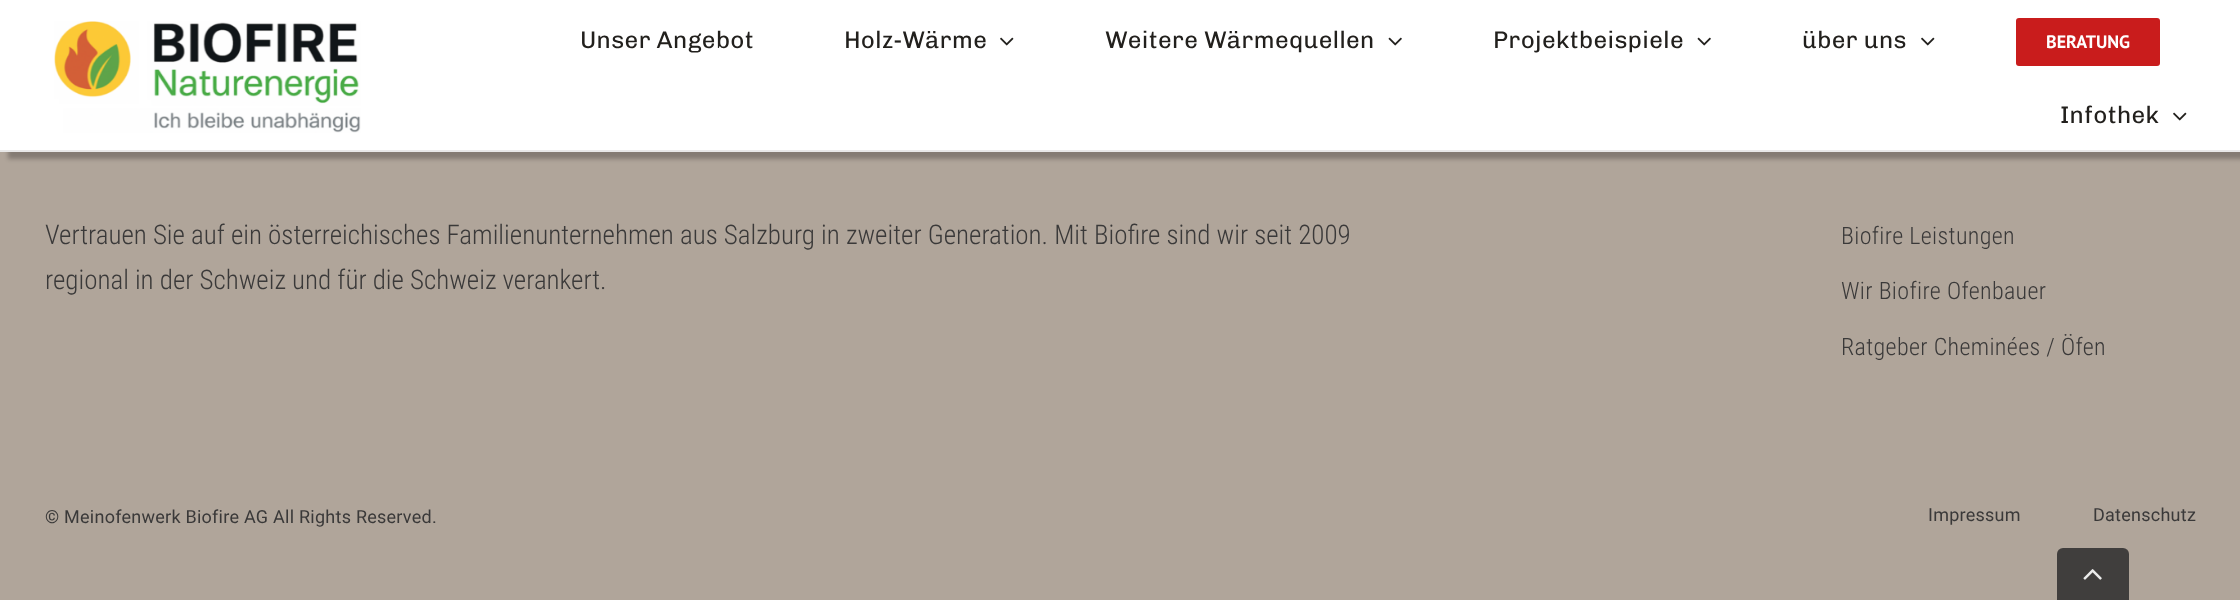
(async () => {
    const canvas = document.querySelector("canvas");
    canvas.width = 2240;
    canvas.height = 600;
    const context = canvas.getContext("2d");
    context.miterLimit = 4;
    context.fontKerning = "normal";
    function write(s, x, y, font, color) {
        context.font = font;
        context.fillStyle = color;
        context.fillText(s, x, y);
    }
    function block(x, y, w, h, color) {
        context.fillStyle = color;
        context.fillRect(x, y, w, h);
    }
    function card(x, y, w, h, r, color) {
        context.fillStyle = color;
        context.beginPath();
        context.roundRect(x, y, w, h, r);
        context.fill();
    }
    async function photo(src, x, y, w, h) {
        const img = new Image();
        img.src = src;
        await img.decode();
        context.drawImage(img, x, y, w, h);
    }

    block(0, 0, 2240, 600, "rgb(176, 165, 154)");
    context.fillStyle = "rgba(0, 0, 0, 0.25)";
    context.filter = "blur(2px)";
    context.beginPath();
    context.rect(8, 8, 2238, 151);
    context.fill();
    context.filter = "none";
    block(0, 0, 2240, 150, "rgb(255, 255, 255)");
    block(0, 150, 2240, 2, "rgb(232, 232, 232)");
    await photo("media/1.png", 54, 21, 307, 112);
    context.letterSpacing = "0.35px";
    write("Unser Angebot", 580, 48, "500 24px Chivo", "rgb(34, 32, 29)");
    write("Holz-Wärme", 844, 48, "500 24px Chivo", "rgb(34, 32, 29)");
    await photo("media/2.png", 1000, 37, 14, 9);
    write("Weitere Wärmequellen", 1105, 48, "500 24px Chivo", "rgb(34, 32, 29)");
    await photo("media/3.png", 1388, 37, 14, 9);
    write("Projektbeispiele", 1493, 48, "500 24px Chivo", "rgb(34, 32, 29)");
    await photo("media/3.png", 1697, 37, 14, 9);
    write("über uns", 1802, 48, "500 24px Chivo", "rgb(34, 32, 29)");
    await photo("media/2.png", 1921, 37, 14, 9);
    card(2016, 18, 144, 48, 3, "rgb(201, 28, 28)");
    context.letterSpacing = "0px";
    write("BERATUNG", 2046, 48, "bold 18px PT Sans", "rgb(255, 255, 255)");
    context.letterSpacing = "0.35px";
    write("Infothek", 2060, 123, "500 24px Chivo", "rgb(34, 32, 29)");
    await photo("media/2.png", 2173, 112, 14, 9);
    context.letterSpacing = "0px";
    write("Vertrauen Sie auf ein österreichisches Familienunternehmen aus Salzburg in zweiter Generation. Mit Biofire sind wir seit 2009", 45, 244, "300 27px Roboto Condensed", "rgb(58, 57, 57)");
    write("regional in der Schweiz und für die Schweiz verankert.", 45, 289, "300 27px Roboto Condensed", "rgb(58, 57, 57)");
    context.letterSpacing = "0.35px";
    write("Biofire Leistungen", 1841, 244, "300 24px Roboto Condensed", "rgb(58, 57, 57)");
    write("Wir Biofire Ofenbauer", 1841, 299, "300 24px Roboto Condensed", "rgb(58, 57, 57)");
    write("Ratgeber Cheminées / Öfen", 1841, 355, "300 24px Roboto Condensed", "rgb(58, 57, 57)");
    context.letterSpacing = "0.25px";
    write("© Meinofenwerk Biofire AG All Rights Reserved.", 45, 523, "18px Roboto", "rgb(58, 57, 57)");
    write("Impressum", 1928, 521, "18px Roboto", "rgb(58, 57, 57)");
    write("Datenschutz", 2093, 521, "18px Roboto", "rgb(58, 57, 57)");
    context.fillStyle = "rgb(64, 62, 61)";
    context.beginPath();
    context.roundRect(2057, 548, 72, 52, [6, 6, 0, 0]);
    context.fill();
    await photo("media/4.png", 2083, 569, 19, 11);
})();
